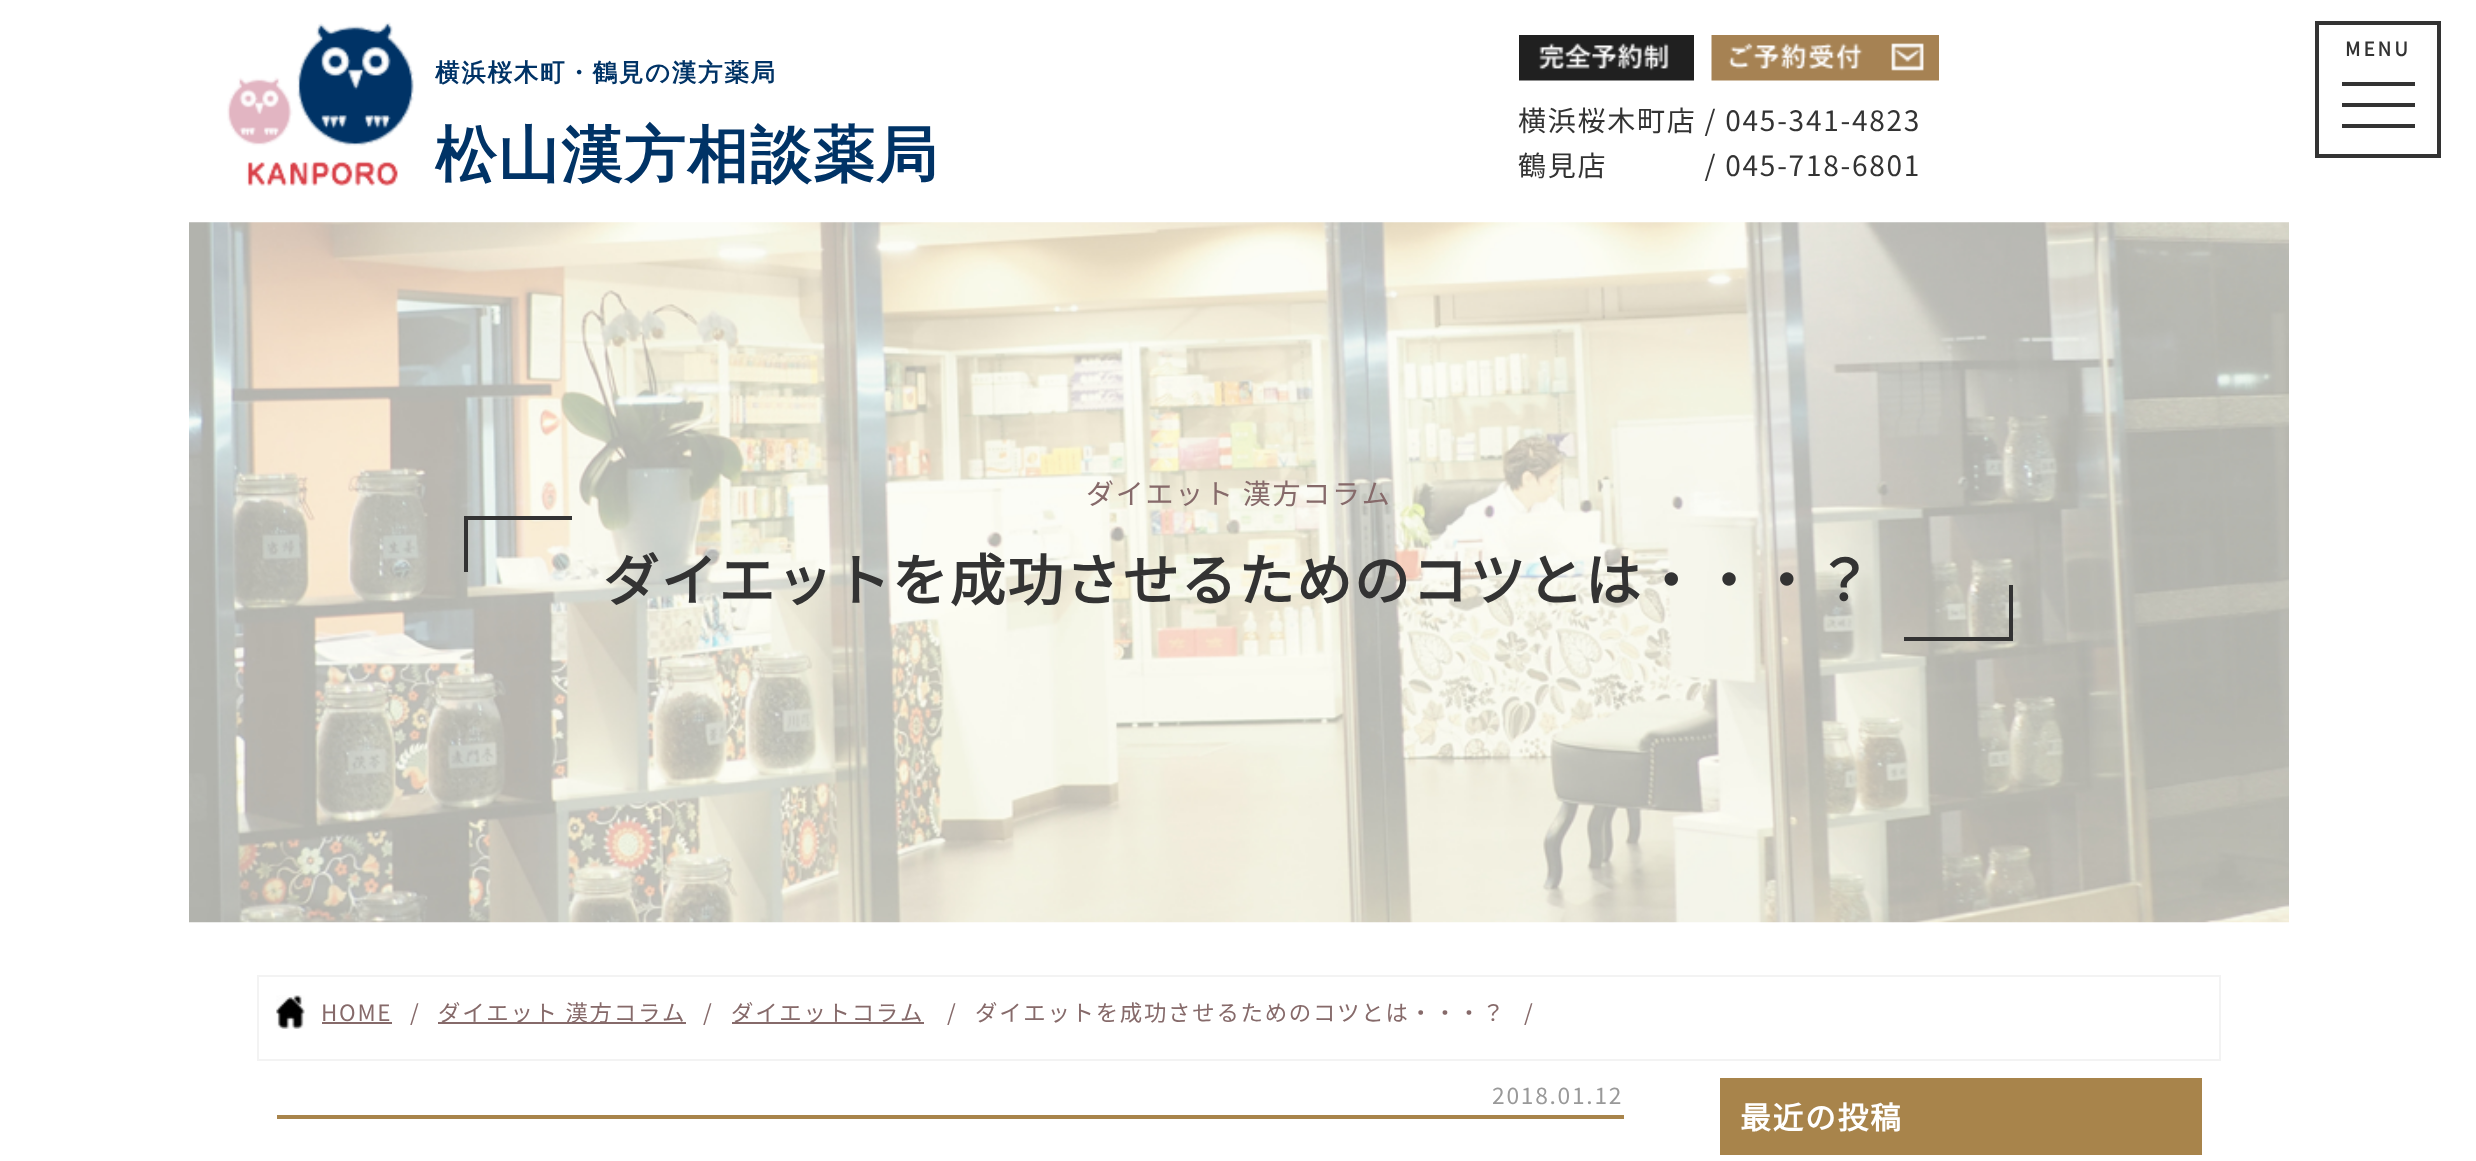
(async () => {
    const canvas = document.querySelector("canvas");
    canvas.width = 2476;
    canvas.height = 1161;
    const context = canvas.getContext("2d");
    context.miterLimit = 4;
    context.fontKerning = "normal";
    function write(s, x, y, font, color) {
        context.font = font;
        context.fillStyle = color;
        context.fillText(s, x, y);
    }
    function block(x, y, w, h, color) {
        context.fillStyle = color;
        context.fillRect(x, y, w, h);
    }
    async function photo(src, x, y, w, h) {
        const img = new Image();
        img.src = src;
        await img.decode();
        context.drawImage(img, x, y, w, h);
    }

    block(0, 0, 2476, 1161, "rgb(255, 255, 255)");
    context.strokeStyle = "rgb(51, 51, 51)";
    context.lineWidth = 4;
    context.strokeRect(2317, 23, 122, 133);
    context.letterSpacing = "3px";
    write("MENU", 2345, 56, "bold 19px Noto Sans JP", "rgb(51, 51, 51)");
    block(2342, 82, 73, 4, "rgb(51, 51, 51)");
    block(2342, 103, 73, 4, "rgb(51, 51, 51)");
    block(2342, 124, 73, 4, "rgb(51, 51, 51)");
    await photo("media/1.png", 227, 22, 187, 164);
    context.letterSpacing = "1.75px";
    write("横浜桜木町・鶴見の漢方薬局", 435, 81, "bold 24.5px WenQuanYi Zen Hei", "rgb(0, 51, 102)");
    write("松山漢方相談薬局", 435, 176, "bold 61.25px WenQuanYi Zen Hei", "rgb(0, 51, 102)");
    await photo("media/2.png", 1519, 35, 175, 46);
    await photo("media/3.png", 1711, 35, 228, 46);
    write("横浜桜木町店 / 045-341-4823", 1518, 131, "100 28px Noto Sans JP", "rgb(51, 51, 51)");
    write("鶴見店　　　 / 045-718-6801", 1518, 176, "100 28px Noto Sans JP", "rgb(51, 51, 51)");
    await photo("media/4.png", 189, 222, 2100, 701);
    write("ダイエット 漢方コラム", 1086, 504, "100 28px Noto Sans JP", "rgb(134, 106, 106)");
    block(464, 516, 108, 4, "rgb(51, 51, 51)");
    block(464, 516, 4, 56, "rgb(51, 51, 51)");
    write("ダイエットを成功させるためのコツとは・・・？", 603, 601, "bold 56px Noto Sans JP", "rgb(51, 51, 51)");
    block(2009, 585, 4, 56, "rgb(51, 51, 51)");
    block(1904, 637, 109, 4, "rgb(51, 51, 51)");
    context.strokeStyle = "rgb(243, 243, 243)";
    context.lineWidth = 2;
    context.strokeRect(258, 976, 1962, 84);
    await photo("media/5.png", 276, 995, 29, 34);
    write("HOME", 321, 1021, "100 22.4px Noto Sans JP", "rgb(134, 106, 106)");
    block(322, 1022, 70, 2, "rgb(134, 106, 106)");
    write("/", 410, 1021, "100 22.4px Noto Sans JP", "rgb(134, 106, 106)");
    block(438, 1022, 248, 2, "rgb(134, 106, 106)");
    write("ダイエット 漢方コラム", 438, 1021, "100 22.4px Noto Sans JP", "rgb(134, 106, 106)");
    write("/", 703, 1021, "100 22.4px Noto Sans JP", "rgb(134, 106, 106)");
    block(732, 1022, 192, 2, "rgb(134, 106, 106)");
    write("ダイエットコラム", 731, 1021, "100 22.4px Noto Sans JP", "rgb(134, 106, 106)");
    write("/", 947, 1021, "100 22.4px Noto Sans JP", "rgb(134, 106, 106)");
    write("ダイエットを成功させるためのコツとは・・・？", 975, 1021, "100 22.4px Noto Sans JP", "rgb(134, 106, 106)");
    write("/", 1524, 1021, "100 22.4px Noto Sans JP", "rgb(134, 106, 106)");
    block(277, 1115, 1347, 4, "rgb(168, 132, 75)");
    write("2018.01.12", 1492, 1104, "100 22.75px Noto Sans JP", "rgb(153, 153, 153)");
    block(1720, 1078, 482, 77, "rgb(168, 132, 75)");
    write("最近の投稿", 1740, 1129, "bold 30.75px Noto Sans JP", "rgb(255, 255, 255)");
})();
